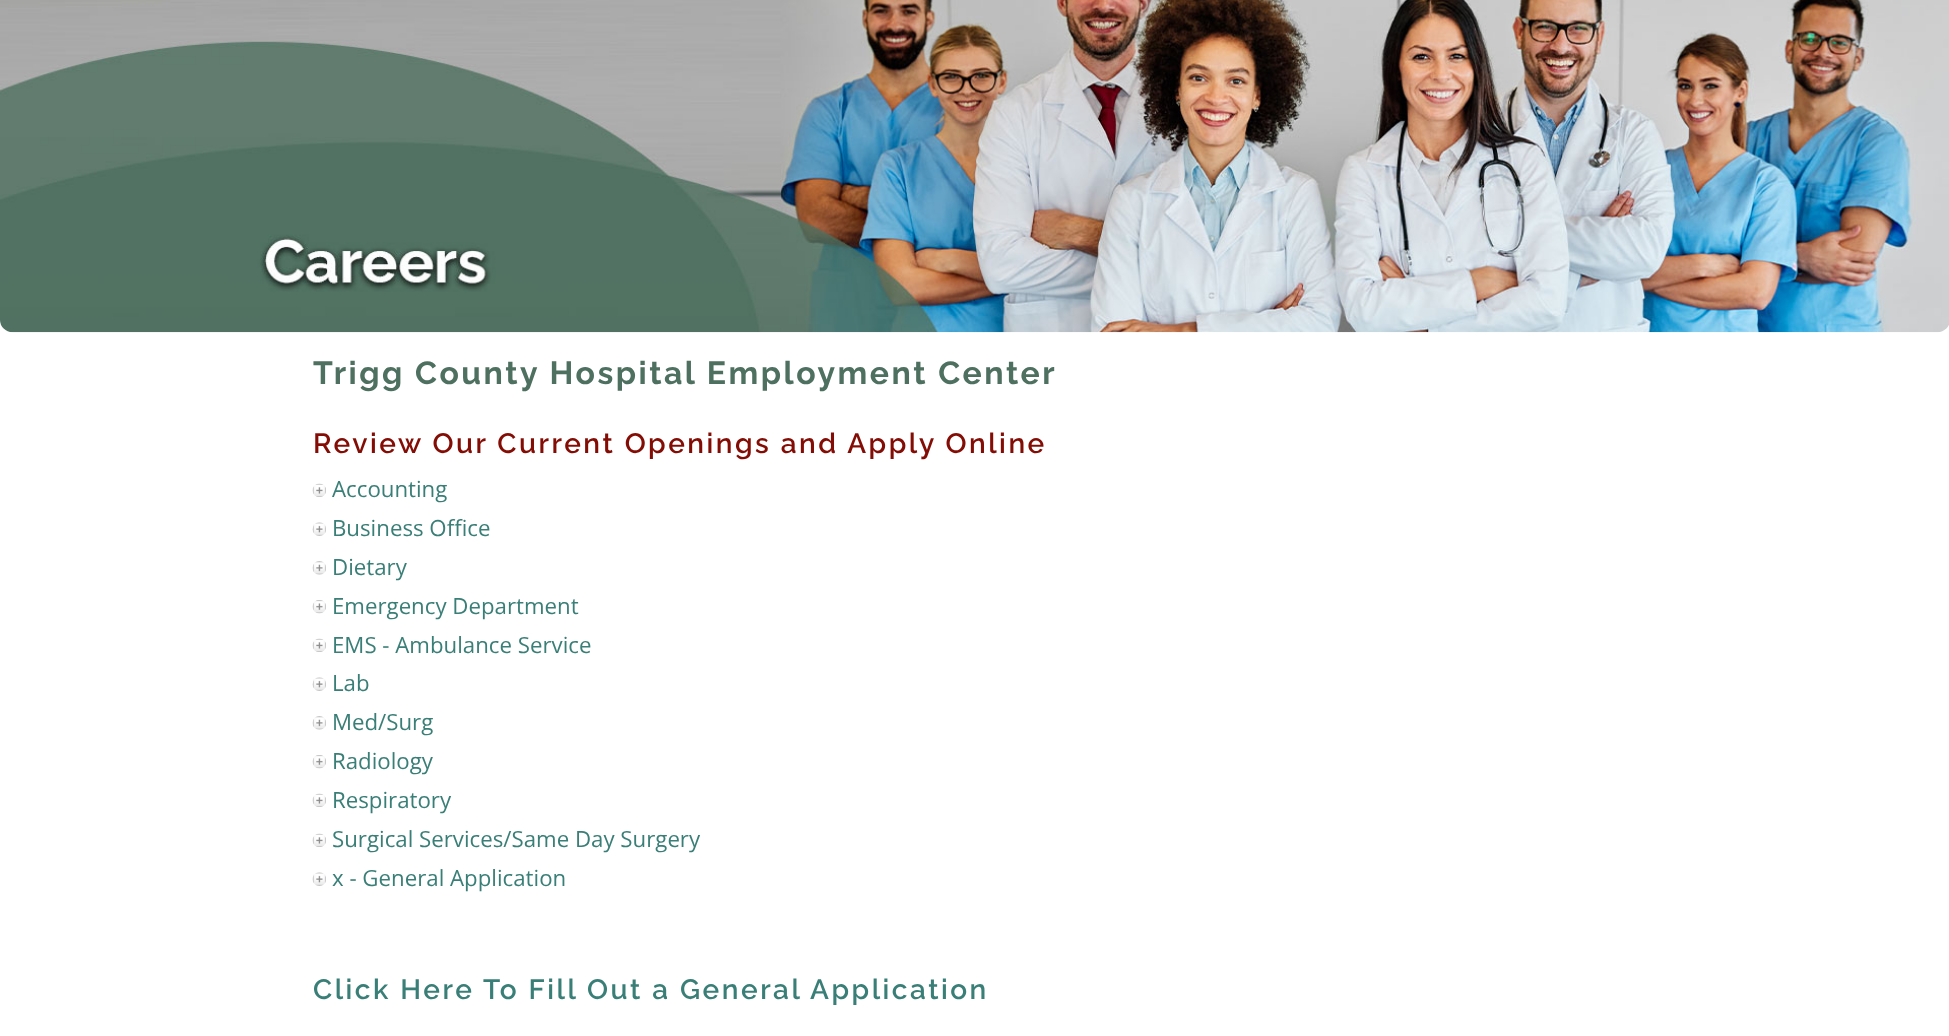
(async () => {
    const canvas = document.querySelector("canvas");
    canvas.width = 1949;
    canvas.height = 1036;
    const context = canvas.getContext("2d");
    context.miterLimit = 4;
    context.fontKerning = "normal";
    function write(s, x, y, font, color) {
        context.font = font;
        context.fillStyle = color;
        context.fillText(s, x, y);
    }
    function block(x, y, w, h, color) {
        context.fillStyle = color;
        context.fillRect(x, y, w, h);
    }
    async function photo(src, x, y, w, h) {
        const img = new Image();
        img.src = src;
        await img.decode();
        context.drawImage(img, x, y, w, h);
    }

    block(0, 0, 1949, 1036, "rgb(255, 255, 255)");
    await photo("media/1.png", 0, 0, 1949, 333);
    context.letterSpacing = "2.5px";
    write("Trigg County Hospital Employment Center", 313, 384, "bold 32px Raleway", "rgb(78, 112, 96)");
    write("Review Our Current Openings and Apply Online", 313, 453, "600 28px Raleway", "rgb(131, 12, 4)");
    await photo("media/2.png", 312, 483, 14, 14);
    context.letterSpacing = "0px";
    write("Accounting", 332, 497, "22.25px Open Sans", "rgb(58, 127, 119)");
    await photo("media/3.png", 312, 522, 14, 14);
    write("Business Office", 332, 536, "22.25px Open Sans", "rgb(58, 127, 119)");
    await photo("media/4.png", 312, 561, 14, 14);
    write("Dietary", 332, 575, "22.25px Open Sans", "rgb(58, 127, 119)");
    await photo("media/5.png", 312, 600, 14, 14);
    write("Emergency Department", 332, 614, "22.25px Open Sans", "rgb(58, 127, 119)");
    await photo("media/2.png", 312, 638, 14, 14);
    write("EMS - Ambulance Service", 332, 653, "22.25px Open Sans", "rgb(58, 127, 119)");
    await photo("media/3.png", 312, 677, 14, 14);
    write("Lab", 332, 691, "22.25px Open Sans", "rgb(58, 127, 119)");
    await photo("media/4.png", 312, 716, 14, 14);
    write("Med/Surg", 332, 730, "22.25px Open Sans", "rgb(58, 127, 119)");
    await photo("media/5.png", 312, 755, 14, 14);
    write("Radiology", 332, 769, "22.25px Open Sans", "rgb(58, 127, 119)");
    await photo("media/2.png", 312, 793, 14, 14);
    write("Respiratory", 332, 808, "22.25px Open Sans", "rgb(58, 127, 119)");
    await photo("media/2.png", 312, 833, 14, 14);
    write("Surgical Services/Same Day Surgery", 332, 847, "22.25px Open Sans", "rgb(58, 127, 119)");
    await photo("media/6.png", 312, 872, 14, 14);
    write("x - General Application", 332, 886, "22.25px Open Sans", "rgb(58, 127, 119)");
    context.letterSpacing = "2.5px";
    write("Click Here To Fill Out a General Application", 313, 999, "600 28px Raleway", "rgb(58, 127, 119)");
})();
